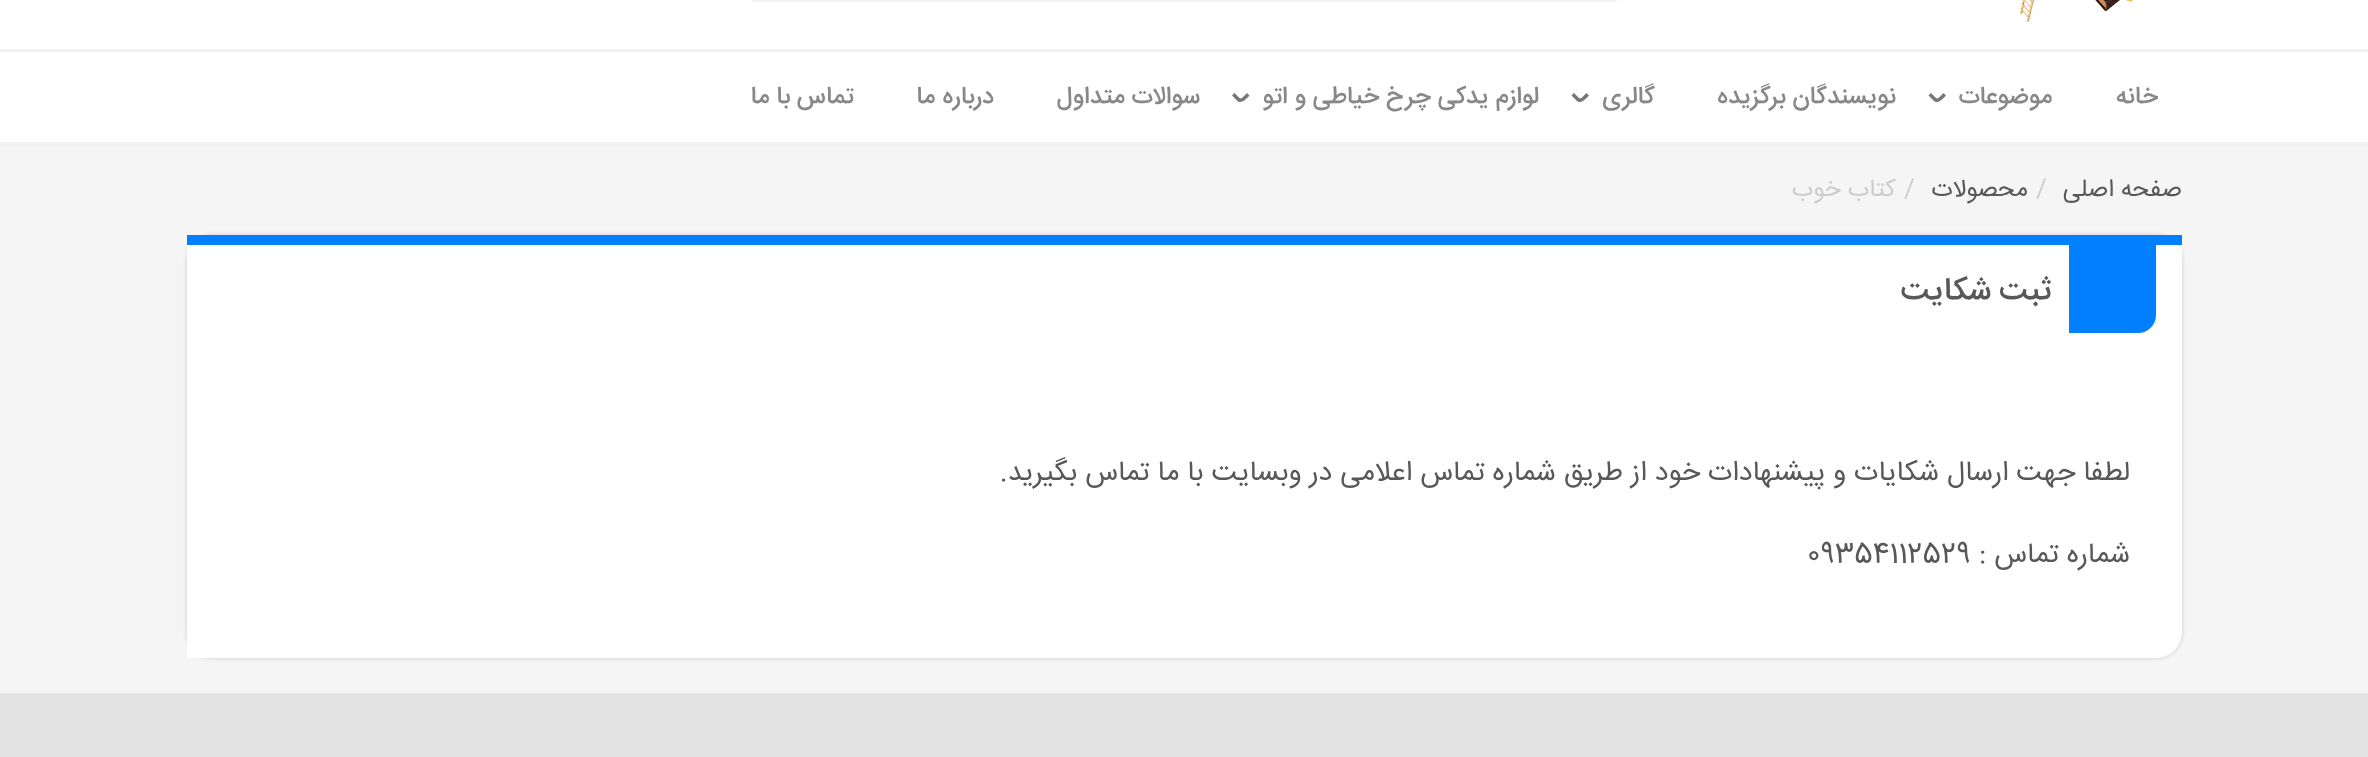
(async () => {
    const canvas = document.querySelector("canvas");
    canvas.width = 2368;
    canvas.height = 757;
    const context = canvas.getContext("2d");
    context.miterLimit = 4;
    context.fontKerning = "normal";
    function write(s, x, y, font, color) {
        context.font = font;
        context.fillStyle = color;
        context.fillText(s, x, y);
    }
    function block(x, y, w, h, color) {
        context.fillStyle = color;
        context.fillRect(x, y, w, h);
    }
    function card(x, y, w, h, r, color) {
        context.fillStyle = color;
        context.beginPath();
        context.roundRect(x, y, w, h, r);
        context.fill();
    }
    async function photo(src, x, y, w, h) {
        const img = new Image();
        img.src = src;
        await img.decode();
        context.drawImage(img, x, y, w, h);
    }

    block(0, 0, 2368, 757, "rgb(245, 245, 245)");
    block(0, 0, 2368, 142, "rgb(255, 255, 255)");
    block(0, 142, 2368, 5, "rgb(241, 241, 241)");
    card(747, -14, 875, 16, 14, "rgb(245, 245, 245)");
    await photo("media/1.png", 2020, 0, 113, 23);
    context.fillStyle = "rgb(241, 241, 241)";
    context.beginPath();
    context.moveTo(0, 49);
    context.lineTo(0, 52);
    context.lineTo(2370, 52);
    context.lineTo(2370, 137);
    context.lineTo(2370, 49);
    context.closePath();
    context.fill();
    context.direction = "rtl";
    write("خانه", 2158, 103, "500 24.5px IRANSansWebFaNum", "rgb(136, 136, 136)");
    write("موضوعات", 2052, 103, "500 24.5px IRANSansWebFaNum", "rgb(136, 136, 136)");
    context.fillStyle = "rgb(119, 119, 119)";
    context.beginPath();
    context.moveTo(1933.5, 100.5);
    context.lineTo(1928.5, 95.5);
    context.lineTo(1937, 86.5);
    context.lineTo(1946, 95.5);
    context.bezierCurveTo(1943, 98.5, 1938, 105, 1933.5, 100.5);
    context.closePath();
    context.moveTo(1936, 98);
    context.lineTo(1931, 93);
    context.lineTo(1937, 86.5);
    context.lineTo(1943.5, 93);
    context.lineTo(1938.5, 98);
    context.bezierCurveTo(1938, 98.5, 1936.5, 98.5, 1936, 98);
    context.closePath();
    context.fill("evenodd");
    write("نویسندگان برگزیده", 1896, 103, "500 24.5px IRANSansWebFaNum", "rgb(136, 136, 136)");
    write("گالری", 1655, 103, "500 24.5px IRANSansWebFaNum", "rgb(136, 136, 136)");
    context.fillStyle = "rgb(119, 119, 119)";
    context.beginPath();
    context.moveTo(1576.5, 100.5);
    context.lineTo(1571.5, 95.5);
    context.lineTo(1580, 86.5);
    context.lineTo(1589, 95.5);
    context.bezierCurveTo(1586, 98.5, 1581, 105, 1576.5, 100.5);
    context.closePath();
    context.moveTo(1579, 98);
    context.lineTo(1574, 93);
    context.lineTo(1580, 86.5);
    context.lineTo(1586.5, 93);
    context.lineTo(1581.5, 98);
    context.bezierCurveTo(1580.5, 98.5, 1579.5, 98.5, 1579, 98);
    context.closePath();
    context.fill("evenodd");
    write("لوازم یدکی چرخ خیاطی و اتو", 1539, 103, "500 24.5px IRANSansWebFaNum", "rgb(136, 136, 136)");
    context.fillStyle = "rgb(119, 119, 119)";
    context.beginPath();
    context.moveTo(1237, 100.5);
    context.lineTo(1232, 95.5);
    context.lineTo(1240.5, 86.5);
    context.lineTo(1249.5, 95.5);
    context.bezierCurveTo(1246.5, 98.5, 1241.5, 105, 1237, 100.5);
    context.closePath();
    context.moveTo(1239.5, 98);
    context.lineTo(1234.5, 93);
    context.lineTo(1240.5, 86.5);
    context.lineTo(1247, 93);
    context.lineTo(1242, 98);
    context.bezierCurveTo(1241.5, 98.5, 1240, 98.5, 1239.5, 98);
    context.closePath();
    context.fill("evenodd");
    write("سوالات متداول", 1200, 103, "500 24.5px IRANSansWebFaNum", "rgb(136, 136, 136)");
    write("درباره", 994, 103, "500 24.5px IRANSansWebFaNum", "rgb(136, 136, 136)");
    write("ما", 935, 103, "500 24.5px IRANSansWebFaNum", "rgb(136, 136, 136)");
    write("تماس با ما", 854, 103, "500 24.5px IRANSansWebFaNum", "rgb(136, 136, 136)");
    write("صفحه اصلی", 2182, 196, "24.5px IRANSansWebFaNum", "rgb(88, 88, 88)");
    context.direction = "ltr";
    write("/", 2036, 196, "24.5px IRANSansWebFaNum", "rgb(204, 204, 204)");
    context.direction = "rtl";
    write("محصولات", 2028, 196, "24.5px IRANSansWebFaNum", "rgb(88, 88, 88)");
    context.direction = "ltr";
    write("/", 1904, 196, "24.5px IRANSansWebFaNum", "rgb(204, 204, 204)");
    context.direction = "rtl";
    write("کتاب خوب", 1896, 196, "24.5px IRANSansWebFaNum", "rgb(204, 204, 204)");
    context.fillStyle = "rgb(201, 199, 211)";
    context.filter = "blur(2px)";
    context.beginPath();
    context.roundRect(187, 235, 1995, 423, 26);
    context.fill();
    context.filter = "none";
    context.fillStyle = "rgb(255, 255, 255)";
    context.beginPath();
    context.roundRect(187, 235, 1995, 423, [0, 0, 26, 0]);
    context.fill();
    block(187, 235, 1995, 10, "rgb(0, 128, 255)");
    context.beginPath();
    context.roundRect(2069, 245, 87, 88, [0, 0, 18, 0]);
    context.fill();
    write("ثبت شکایت", 2051, 299, "500 31.5px IRANSansWebFaNum", "rgb(88, 88, 88)");
    write("لطفا جهت ارسال شکایات و پیشنهادات خود از طریق شماره تماس اعلامی در وبسایت با ما تماس بگیرید.", 2130, 480, "28px IRANSansWebFaNum", "rgb(88, 88, 88)");
    write("شماره تماس :", 2130, 562, "28px IRANSansWebFaNum", "rgb(88, 88, 88)");
    context.direction = "ltr";
    write("09354112529", 1807, 562, "28px IRANSansWebFaNum", "rgb(88, 88, 88)");
    block(0, 693, 2368, 64, "rgb(227, 227, 227)");
})();
